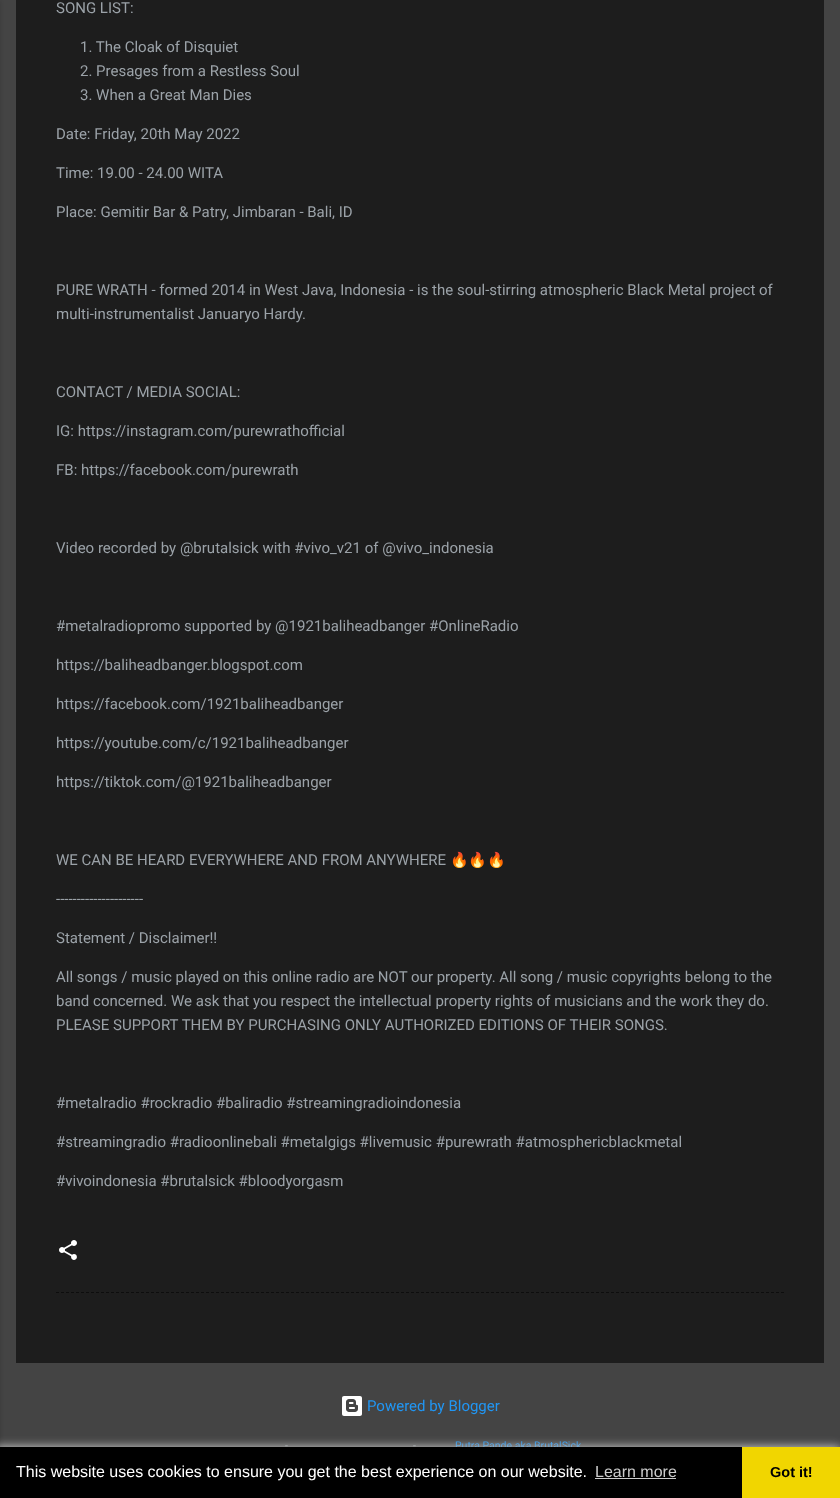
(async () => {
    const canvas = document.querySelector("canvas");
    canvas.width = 840;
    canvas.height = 1498;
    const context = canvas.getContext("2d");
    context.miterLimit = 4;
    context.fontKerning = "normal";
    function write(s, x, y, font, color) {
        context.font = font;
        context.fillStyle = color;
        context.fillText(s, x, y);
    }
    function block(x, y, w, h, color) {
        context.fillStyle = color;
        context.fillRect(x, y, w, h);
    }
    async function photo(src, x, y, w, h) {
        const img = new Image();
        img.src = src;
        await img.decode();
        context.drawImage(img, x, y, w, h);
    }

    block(0, 0, 840, 1498, "rgb(68, 68, 68)");
    context.fillStyle = "rgba(0, 0, 0, 0.1)";
    context.filter = "blur(1.5px)";
    context.beginPath();
    context.rect(-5, 1, 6, 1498);
    context.fill();
    context.filter = "none";
    block(16, 0, 808, 1363, "rgb(29, 29, 29)");
    write("SONG LIST:", 56, 13, "15px Roboto", "rgb(155, 162, 168)");
    write("1. The Cloak of Disquiet", 80, 52, "15px Roboto", "rgb(155, 162, 168)");
    write("2. Presages from a Restless Soul", 80, 76, "15px Roboto", "rgb(155, 162, 168)");
    write("3. When a Great Man Dies", 80, 100, "15px Roboto", "rgb(155, 162, 168)");
    write("Date: Friday, 20th May 2022", 56, 139, "15px Roboto", "rgb(155, 162, 168)");
    write("Time: 19.00 - 24.00 WITA", 56, 178, "15px Roboto", "rgb(155, 162, 168)");
    write("Place: Gemitir Bar & Patry, Jimbaran - Bali, ID", 56, 217, "15px Roboto", "rgb(155, 162, 168)");
    write("PURE WRATH - formed 2014 in West Java, Indonesia - is the soul-stirring atmospheric Black Metal project of", 56, 295, "15px Roboto", "rgb(155, 162, 168)");
    write("multi-instrumentalist Januaryo Hardy.", 56, 319, "15px Roboto", "rgb(155, 162, 168)");
    write("CONTACT / MEDIA SOCIAL:", 56, 397, "15px Roboto", "rgb(155, 162, 168)");
    write("IG: https://instagram.com/purewrathofficial", 56, 436, "15px Roboto", "rgb(155, 162, 168)");
    write("FB: https://facebook.com/purewrath", 56, 475, "15px Roboto", "rgb(155, 162, 168)");
    write("Video recorded by @brutalsick with #vivo_v21 of @vivo_indonesia", 56, 553, "15px Roboto", "rgb(155, 162, 168)");
    write("#metalradiopromo supported by @1921baliheadbanger #OnlineRadio", 56, 631, "15px Roboto", "rgb(155, 162, 168)");
    write("https://baliheadbanger.blogspot.com", 56, 670, "15px Roboto", "rgb(155, 162, 168)");
    write("https://facebook.com/1921baliheadbanger", 56, 709, "15px Roboto", "rgb(155, 162, 168)");
    write("https://youtube.com/c/1921baliheadbanger", 56, 748, "15px Roboto", "rgb(155, 162, 168)");
    write("https://tiktok.com/@1921baliheadbanger", 56, 787, "15px Roboto", "rgb(155, 162, 168)");
    write("WE CAN BE HEARD EVERYWHERE AND FROM ANYWHERE", 56, 865, "15px Roboto", "rgb(155, 162, 168)");
    write("🔥🔥🔥", 450, 865, "15px Noto Color Emoji", "rgb(155, 162, 168)");
    write("---------------------", 56, 904, "15px Roboto", "rgb(155, 162, 168)");
    write("Statement / Disclaimer!!", 56, 943, "15px Roboto", "rgb(155, 162, 168)");
    write("All songs / music played on this online radio are NOT our property. All song / music copyrights belong to the", 56, 982, "15px Roboto", "rgb(155, 162, 168)");
    write("band concerned. We ask that you respect the intellectual property rights of musicians and the work they do.", 56, 1006, "15px Roboto", "rgb(155, 162, 168)");
    write("PLEASE SUPPORT THEM BY PURCHASING ONLY AUTHORIZED EDITIONS OF THEIR SONGS.", 56, 1030, "15px Roboto", "rgb(155, 162, 168)");
    write("#metalradio #rockradio #baliradio #streamingradioindonesia", 56, 1108, "15px Roboto", "rgb(155, 162, 168)");
    write("#streamingradio #radioonlinebali #metalgigs #livemusic #purewrath #atmosphericblackmetal", 56, 1147, "15px Roboto", "rgb(155, 162, 168)");
    write("#vivoindonesia #brutalsick #bloodyorgasm", 56, 1186, "15px Roboto", "rgb(155, 162, 168)");
    await photo("media/1.png", 59, 1240, 18, 20);
    context.beginPath();
    context.moveTo(56, 1292.5);
    context.lineTo(784, 1292.5);
    context.strokeStyle = "rgb(13, 13, 13)";
    context.setLineDash([3, 2]);
    context.stroke();
    await photo("media/2.png", 342, 1396, 20, 20);
    write("Powered by Blogger", 367, 1411, "15px Roboto", "rgb(33, 150, 243)");
    write("-", 285, 1449, "10.5px Roboto", "rgb(155, 162, 168)");
    write("-", 413, 1449, "10.5px Roboto", "rgb(155, 162, 168)");
    write("Putra Pande aka BrutalSick", 455, 1449, "10.5px Roboto", "rgb(33, 150, 243)");
    context.fillStyle = "rgb(192, 192, 192)";
    context.filter = "blur(5px)";
    context.beginPath();
    context.rect(-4, 1446, 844, 50);
    context.fill();
    context.filter = "none";
    block(0, 1447, 742, 51, "rgb(0, 0, 0)");
    write("This website uses cookies to ensure you get the best experience on our website.", 16, 1477, "16px Liberation Sans", "rgb(255, 255, 255)");
    write("Learn more", 595, 1477, "16px Liberation Sans", "rgb(204, 204, 204)");
    block(595, 1478, 81, 1, "rgb(204, 204, 204)");
    block(742, 1447, 98, 51, "rgb(241, 214, 0)");
    write("Got it!", 770, 1477, "bold 14.5px Liberation Sans", "rgb(0, 0, 0)");
})();
